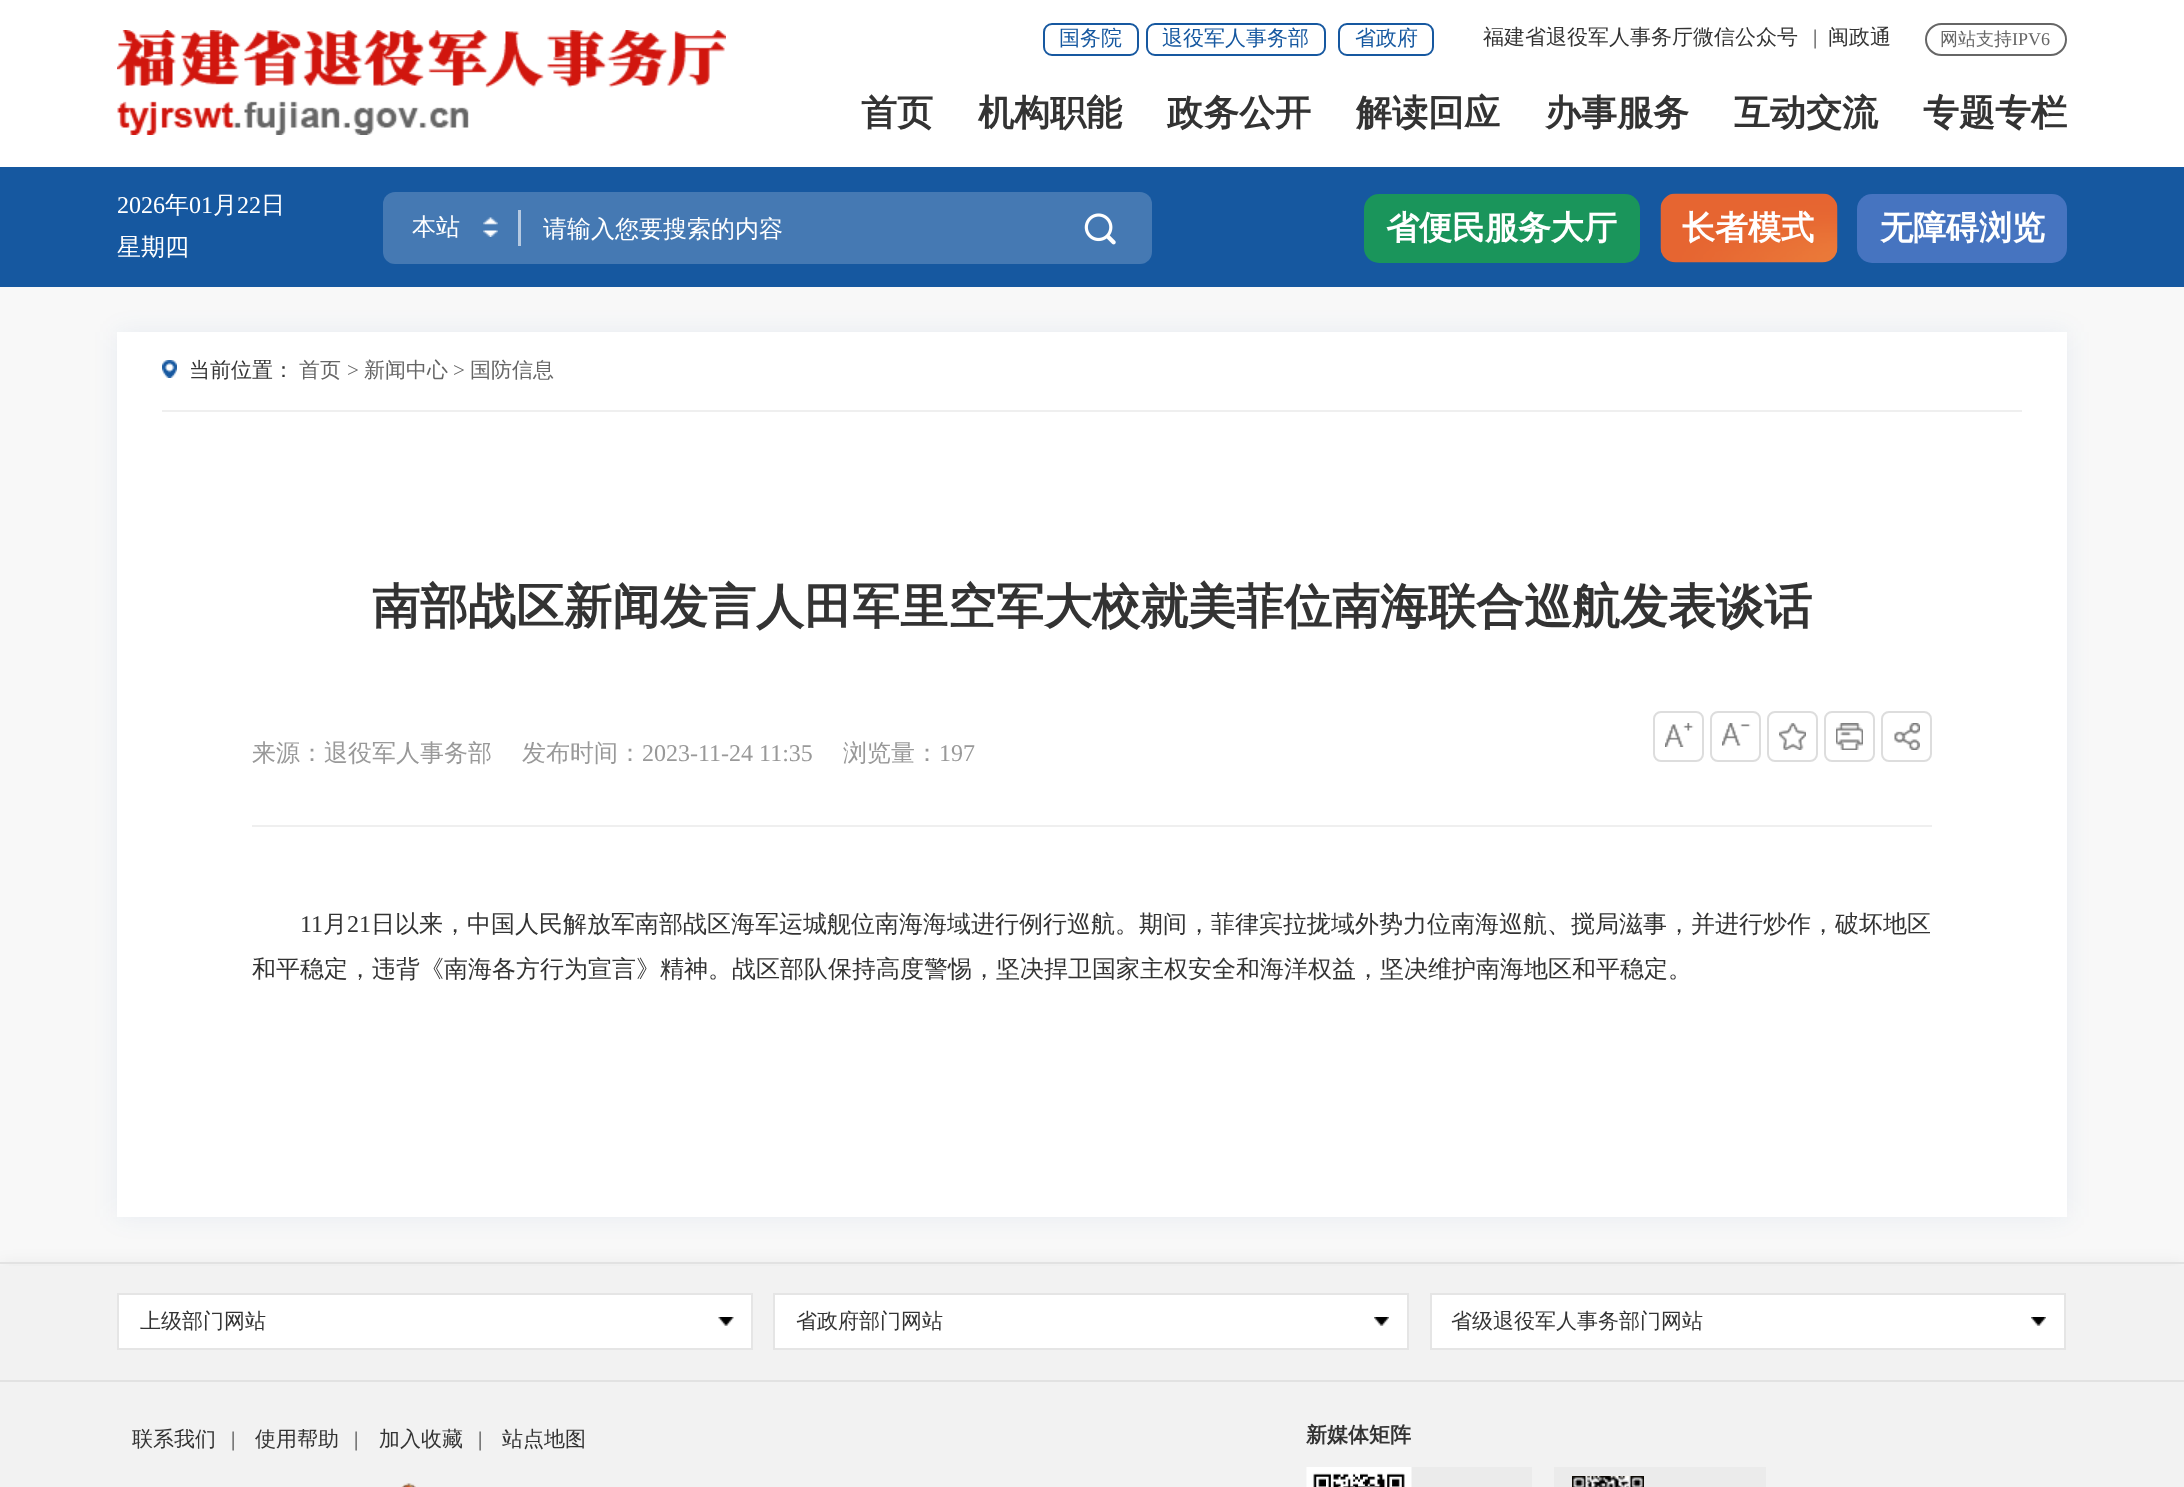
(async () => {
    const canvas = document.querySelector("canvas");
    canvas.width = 2184;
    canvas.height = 1487;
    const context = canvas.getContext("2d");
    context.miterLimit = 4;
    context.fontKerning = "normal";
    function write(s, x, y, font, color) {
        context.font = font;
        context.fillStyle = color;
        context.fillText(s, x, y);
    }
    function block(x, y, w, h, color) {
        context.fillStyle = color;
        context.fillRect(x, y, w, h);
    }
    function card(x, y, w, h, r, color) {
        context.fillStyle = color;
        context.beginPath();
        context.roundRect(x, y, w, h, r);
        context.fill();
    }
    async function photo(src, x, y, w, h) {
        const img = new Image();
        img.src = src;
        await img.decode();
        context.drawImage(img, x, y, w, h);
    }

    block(0, 0, 2184, 1487, "rgb(248, 248, 248)");
    block(0, 0, 2184, 167, "rgb(255, 255, 255)");
    await photo("media/1.png", 117, 30, 609, 105);
    context.beginPath();
    context.roundRect(1044, 24, 94, 31, 8);
    context.strokeStyle = "rgb(22, 88, 160)";
    context.lineWidth = 2;
    context.stroke();
    write("国务院", 1059, 45, "500 21px WenQuanYi Zen Hei", "rgb(22, 88, 160)");
    context.beginPath();
    context.roundRect(1147, 24, 178, 31, 8);
    context.stroke();
    write("退役军人事务部", 1162, 45, "500 21px WenQuanYi Zen Hei", "rgb(22, 88, 160)");
    context.beginPath();
    context.roundRect(1339, 24, 94, 31, 8);
    context.stroke();
    write("省政府", 1355, 45, "500 21px WenQuanYi Zen Hei", "rgb(22, 88, 160)");
    write("福建省退役军人事务厅微信公众号", 1483, 44, "500 21px WenQuanYi Zen Hei", "rgb(51, 51, 51)");
    write("|", 1813, 44, "21px Liberation Serif", "rgb(51, 51, 51)");
    write("闽政通", 1828, 44, "500 21px WenQuanYi Zen Hei", "rgb(51, 51, 51)");
    context.beginPath();
    context.roundRect(1926, 24, 140, 31, 15.5);
    context.strokeStyle = "rgb(102, 102, 102)";
    context.stroke();
    write("网站支持", 1940, 45, "500 18px WenQuanYi Zen Hei", "rgb(102, 102, 102)");
    write("IPV6", 2012, 45, "18px Liberation Serif", "rgb(102, 102, 102)");
    write("首页", 861, 125, "bold 36px WenQuanYi Zen Hei", "rgb(51, 51, 51)");
    write("机构职能", 978, 125, "bold 36px WenQuanYi Zen Hei", "rgb(51, 51, 51)");
    write("政务公开", 1167, 125, "bold 36px WenQuanYi Zen Hei", "rgb(51, 51, 51)");
    write("解读回应", 1356, 125, "bold 36px WenQuanYi Zen Hei", "rgb(51, 51, 51)");
    write("办事服务", 1545, 125, "bold 36px WenQuanYi Zen Hei", "rgb(51, 51, 51)");
    write("互动交流", 1734, 125, "bold 36px WenQuanYi Zen Hei", "rgb(51, 51, 51)");
    write("专题专栏", 1923, 125, "bold 36px WenQuanYi Zen Hei", "rgb(51, 51, 51)");
    block(0, 167, 2184, 120, "rgb(22, 88, 160)");
    write("2026", 117, 213, "24px Liberation Serif", "rgb(255, 255, 255)");
    write("年", 165, 213, "500 24px WenQuanYi Zen Hei", "rgb(255, 255, 255)");
    write("01", 189, 213, "24px Liberation Serif", "rgb(255, 255, 255)");
    write("月", 213, 213, "500 24px WenQuanYi Zen Hei", "rgb(255, 255, 255)");
    write("22", 237, 213, "24px Liberation Serif", "rgb(255, 255, 255)");
    write("日", 261, 213, "500 24px WenQuanYi Zen Hei", "rgb(255, 255, 255)");
    write("星期四", 117, 255, "500 24px WenQuanYi Zen Hei", "rgb(255, 255, 255)");
    card(383, 192, 769, 72, 12, "rgb(69, 121, 179)");
    write("本站", 412, 235, "500 24px WenQuanYi Zen Hei", "rgb(255, 255, 255)");
    await photo("media/2.png", 483, 217, 15, 20);
    block(518, 210, 3, 36, "rgb(181, 201, 225)");
    write("请输入您要搜索的内容", 543, 237, "500 24px WenQuanYi Zen Hei", "rgb(255, 255, 255)");
    await photo("media/3.png", 1084, 213, 32, 32);
    card(1364, 194, 276, 69, 15, "rgb(26, 149, 91)");
    write("省便民服务大厅", 1386, 239, "bold 33px WenQuanYi Zen Hei", "rgb(255, 255, 255)");
    await photo("media/4.png", 1660, 193, 178, 70);
    write("长者模式", 1682, 239, "bold 33px WenQuanYi Zen Hei", "rgb(255, 255, 255)");
    card(1857, 194, 210, 69, 15, "rgb(70, 116, 192)");
    write("无障碍浏览", 1880, 239, "bold 33px WenQuanYi Zen Hei", "rgb(255, 255, 255)");
    context.fillStyle = "rgba(22, 88, 160, 0.08)";
    context.filter = "blur(12px)";
    context.beginPath();
    context.rect(117, 332, 1950, 885);
    context.fill();
    context.filter = "none";
    block(117, 332, 1950, 885, "rgb(255, 255, 255)");
    block(162, 410, 1860, 2, "rgb(239, 239, 239)");
    await photo("media/5.png", 162, 360, 15, 18);
    write("当前位置：", 189, 377, "500 21px WenQuanYi Zen Hei", "rgb(51, 51, 51)");
    write("首页", 299, 377, "500 21px WenQuanYi Zen Hei", "rgb(102, 102, 102)");
    write(">", 347, 377, "21px Liberation Serif", "rgb(102, 102, 102)");
    write("新闻中心", 364, 377, "500 21px WenQuanYi Zen Hei", "rgb(102, 102, 102)");
    write(">", 453, 377, "21px Liberation Serif", "rgb(102, 102, 102)");
    write("国防信息", 470, 377, "500 21px WenQuanYi Zen Hei", "rgb(102, 102, 102)");
    write("南部战区新闻发言人田军里空军大校就美菲位南海联合巡航发表谈话", 372, 623, "bold 48px WenQuanYi Zen Hei", "rgb(51, 51, 51)");
    block(252, 825, 1680, 2, "rgb(239, 239, 239)");
    write("来源：退役军人事务部", 252, 761, "500 24px WenQuanYi Zen Hei", "rgb(153, 153, 153)");
    write("发布时间：", 522, 761, "500 24px WenQuanYi Zen Hei", "rgb(153, 153, 153)");
    write("2023-11-24 11:35", 642, 761, "24px Liberation Serif", "rgb(153, 153, 153)");
    write("浏览量：", 843, 761, "500 24px WenQuanYi Zen Hei", "rgb(153, 153, 153)");
    write("197", 939, 761, "24px Liberation Serif", "rgb(153, 153, 153)");
    context.beginPath();
    context.roundRect(1654, 712, 49, 49, 7);
    context.strokeStyle = "rgb(221, 221, 221)";
    context.stroke();
    await photo("media/6.png", 1665, 723, 29, 24);
    context.beginPath();
    context.roundRect(1711, 712, 49, 49, 7);
    context.stroke();
    await photo("media/7.png", 1722, 723, 29, 23);
    context.beginPath();
    context.roundRect(1768, 712, 49, 49, 7);
    context.stroke();
    await photo("media/8.png", 1779, 723, 27, 27);
    context.beginPath();
    context.roundRect(1825, 712, 49, 49, 7);
    context.stroke();
    await photo("media/9.png", 1836, 723, 27, 27);
    context.beginPath();
    context.roundRect(1882, 712, 49, 49, 7);
    context.stroke();
    await photo("media/10.png", 1894, 723, 26, 27);
    write("11", 300, 932, "24px Liberation Serif", "rgb(51, 51, 51)");
    write("月", 323, 932, "500 24px WenQuanYi Zen Hei", "rgb(51, 51, 51)");
    write("21", 347, 932, "24px Liberation Serif", "rgb(51, 51, 51)");
    write("日以来，中国人民解放军南部战区海军运城舰位南海海域进行例行巡航。期间，菲律宾拉拢域外势力位南海巡航、搅局滋事，并进行炒作，破坏地区", 371, 932, "500 24px WenQuanYi Zen Hei", "rgb(51, 51, 51)");
    write("和平稳定，违背《南海各方行为宣言》精神。战区部队保持高度警惕，坚决捍卫国家主权安全和海洋权益，坚决维护南海地区和平稳定。", 252, 977, "500 24px WenQuanYi Zen Hei", "rgb(51, 51, 51)");
    context.fillStyle = "rgba(0, 0, 0, 0.05)";
    context.filter = "blur(7.5px)";
    context.beginPath();
    context.rect(0, 1262, 2184, 118);
    context.fill();
    context.filter = "none";
    block(0, 1266, 2184, 114, "rgb(242, 242, 242)");
    block(0, 1262, 2184, 2, "rgb(226, 226, 226)");
    context.fillStyle = "rgb(255, 255, 255)";
    context.beginPath();
    context.rect(118, 1294, 634, 55);
    context.fill();
    context.strokeStyle = "rgb(229, 229, 229)";
    context.stroke();
    write("上级部门网站", 140, 1328, "500 21px WenQuanYi Zen Hei", "rgb(51, 51, 51)");
    await photo("media/11.png", 718, 1317, 16, 9);
    context.fillStyle = "rgb(255, 255, 255)";
    context.beginPath();
    context.rect(774, 1294, 634, 55);
    context.fill();
    context.stroke();
    write("省政府部门网站", 796, 1328, "500 21px WenQuanYi Zen Hei", "rgb(51, 51, 51)");
    await photo("media/12.png", 1374, 1317, 15, 9);
    context.fillStyle = "rgb(255, 255, 255)";
    context.beginPath();
    context.rect(1431, 1294, 634, 55);
    context.fill();
    context.stroke();
    write("省级退役军人事务部门网站", 1451, 1328, "500 21px WenQuanYi Zen Hei", "rgb(51, 51, 51)");
    await photo("media/13.png", 2031, 1317, 15, 9);
    block(0, 1382, 2184, 105, "rgb(242, 242, 242)");
    block(0, 1380, 2184, 2, "rgb(226, 226, 226)");
    write("联系我们", 132, 1446, "500 21px WenQuanYi Zen Hei", "rgb(51, 51, 51)");
    write("|", 231, 1446, "21px Liberation Serif", "rgb(51, 51, 51)");
    write("使用帮助", 255, 1446, "500 21px WenQuanYi Zen Hei", "rgb(51, 51, 51)");
    write("|", 354, 1446, "21px Liberation Serif", "rgb(51, 51, 51)");
    write("加入收藏", 379, 1446, "500 21px WenQuanYi Zen Hei", "rgb(51, 51, 51)");
    write("|", 478, 1446, "21px Liberation Serif", "rgb(51, 51, 51)");
    write("站点地图", 502, 1446, "500 21px WenQuanYi Zen Hei", "rgb(51, 51, 51)");
    await photo("media/14.png", 401, 1483, 15, 4);
    write("新媒体矩阵", 1306, 1442, "bold 21px WenQuanYi Zen Hei", "rgb(51, 51, 51)");
    block(1411, 1467, 121, 20, "rgb(235, 235, 235)");
    await photo("media/15.png", 1306, 1467, 106, 20);
    block(1554, 1467, 212, 20, "rgb(235, 235, 235)");
    await photo("media/16.png", 1572, 1476, 72, 11);
})();
